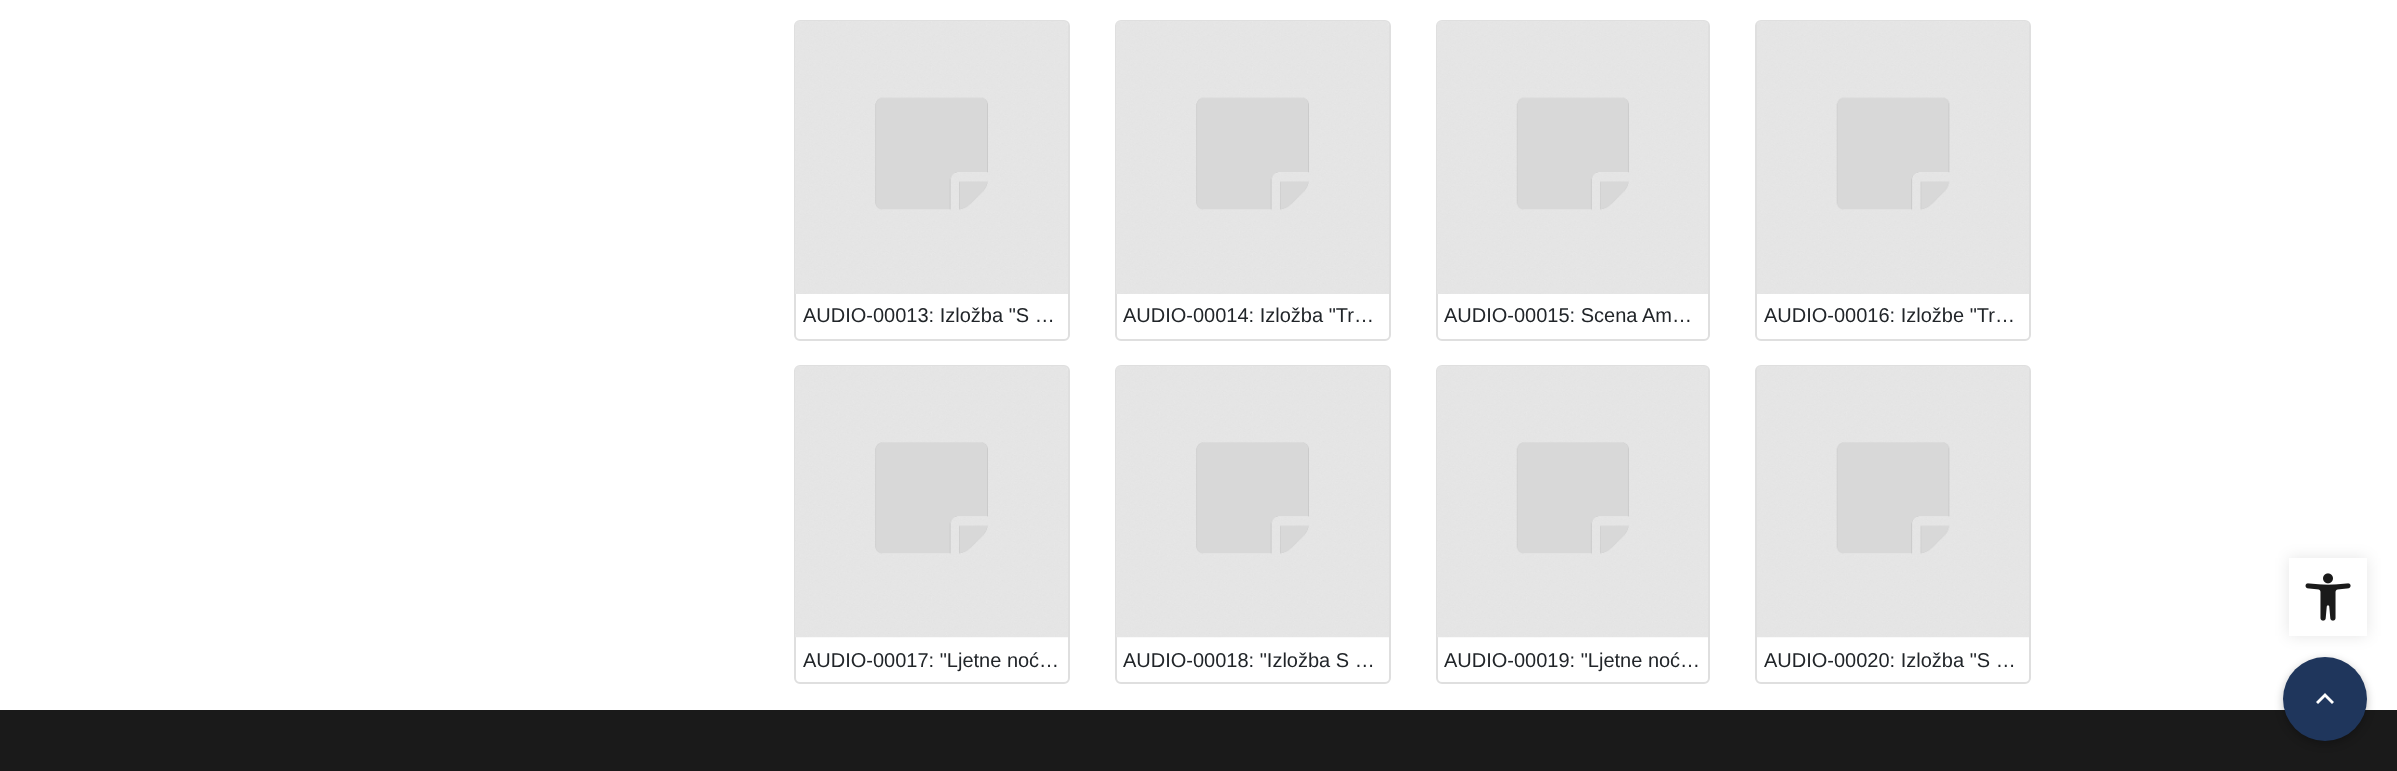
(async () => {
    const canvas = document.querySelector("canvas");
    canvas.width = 2397;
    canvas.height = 771;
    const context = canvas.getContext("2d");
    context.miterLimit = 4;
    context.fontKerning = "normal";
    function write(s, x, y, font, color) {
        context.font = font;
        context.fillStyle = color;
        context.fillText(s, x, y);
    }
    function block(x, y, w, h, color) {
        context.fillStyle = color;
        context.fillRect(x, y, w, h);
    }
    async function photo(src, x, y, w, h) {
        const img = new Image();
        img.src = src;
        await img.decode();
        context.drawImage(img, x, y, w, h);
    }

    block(0, 0, 2397, 771, "rgb(255, 255, 255)");
    context.beginPath();
    context.roundRect(795, 21, 274, 319, 5);
    context.strokeStyle = "rgb(223, 223, 223)";
    context.lineWidth = 2;
    context.stroke();
    await photo("media/1.png", 795, 21, 273, 273);
    write("AUDIO-00013: Izložba \"S …", 803, 322, "20px Liberation Sans", "rgb(33, 37, 41)");
    context.beginPath();
    context.roundRect(1116, 21, 274, 319, 5);
    context.stroke();
    await photo("media/2.png", 1116, 21, 273, 273);
    write("AUDIO-00014: Izložba \"Tr…", 1123, 322, "20px Liberation Sans", "rgb(33, 37, 41)");
    context.beginPath();
    context.roundRect(1437, 21, 272, 319, 5);
    context.stroke();
    await photo("media/3.png", 1437, 21, 271, 273);
    write("AUDIO-00015: Scena Am…", 1444, 322, "20px Liberation Sans", "rgb(33, 37, 41)");
    context.beginPath();
    context.roundRect(1756, 21, 274, 319, 5);
    context.stroke();
    await photo("media/4.png", 1757, 21, 272, 273);
    write("AUDIO-00016: Izložbe \"Tr…", 1764, 322, "20px Liberation Sans", "rgb(33, 37, 41)");
    context.beginPath();
    context.roundRect(795, 366, 274, 317, 5);
    context.stroke();
    await photo("media/5.png", 795, 366, 273, 272);
    write("AUDIO-00017: \"Ljetne noć…", 803, 667, "20px Liberation Sans", "rgb(33, 37, 41)");
    context.beginPath();
    context.roundRect(1116, 366, 274, 317, 5);
    context.stroke();
    await photo("media/6.png", 1116, 366, 273, 272);
    write("AUDIO-00018: \"Izložba S …", 1123, 667, "20px Liberation Sans", "rgb(33, 37, 41)");
    context.beginPath();
    context.roundRect(1437, 366, 272, 317, 5);
    context.stroke();
    await photo("media/7.png", 1437, 366, 271, 272);
    write("AUDIO-00019: \"Ljetne noć…", 1444, 667, "20px Liberation Sans", "rgb(33, 37, 41)");
    context.beginPath();
    context.roundRect(1756, 366, 274, 317, 5);
    context.stroke();
    await photo("media/8.png", 1757, 366, 272, 272);
    write("AUDIO-00020: Izložba \"S …", 1764, 667, "20px Liberation Sans", "rgb(33, 37, 41)");
    block(0, 710, 2397, 61, "rgb(26, 26, 26)");
    context.fillStyle = "rgba(0, 0, 0, 0.26)";
    context.filter = "blur(4px)";
    context.beginPath();
    context.roundRect(2283, 660, 84, 84, 42);
    context.fill();
    context.filter = "none";
    context.fillStyle = "rgb(31, 54, 92)";
    context.beginPath();
    context.arc(2325, 699, 42, 0, Math.PI * 2);
    context.fill();
    context.save();
    context.beginPath();
    context.moveTo(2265, 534);
    context.lineTo(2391, 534);
    context.lineTo(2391, 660);
    context.lineTo(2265, 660);
    context.closePath();
    context.moveTo(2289, 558);
    context.lineTo(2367, 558);
    context.lineTo(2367, 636);
    context.lineTo(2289, 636);
    context.closePath();
    context.clip("evenodd");
    context.fillStyle = "rgba(0, 0, 0, 0.1)";
    context.filter = "blur(7.5px)";
    context.beginPath();
    context.rect(2289, 558, 78, 78);
    context.fill();
    context.filter = "none";
    context.restore();
    await photo("media/9.png", 2305, 573, 46, 48);
    context.fillStyle = "rgb(255, 255, 255)";
    context.beginPath();
    context.moveTo(2318, 704);
    context.lineTo(2325, 697);
    context.lineTo(2332, 704);
    context.lineTo(2334, 702);
    context.lineTo(2325, 693);
    context.lineTo(2316, 702);
    context.closePath();
    context.fill();
})();
